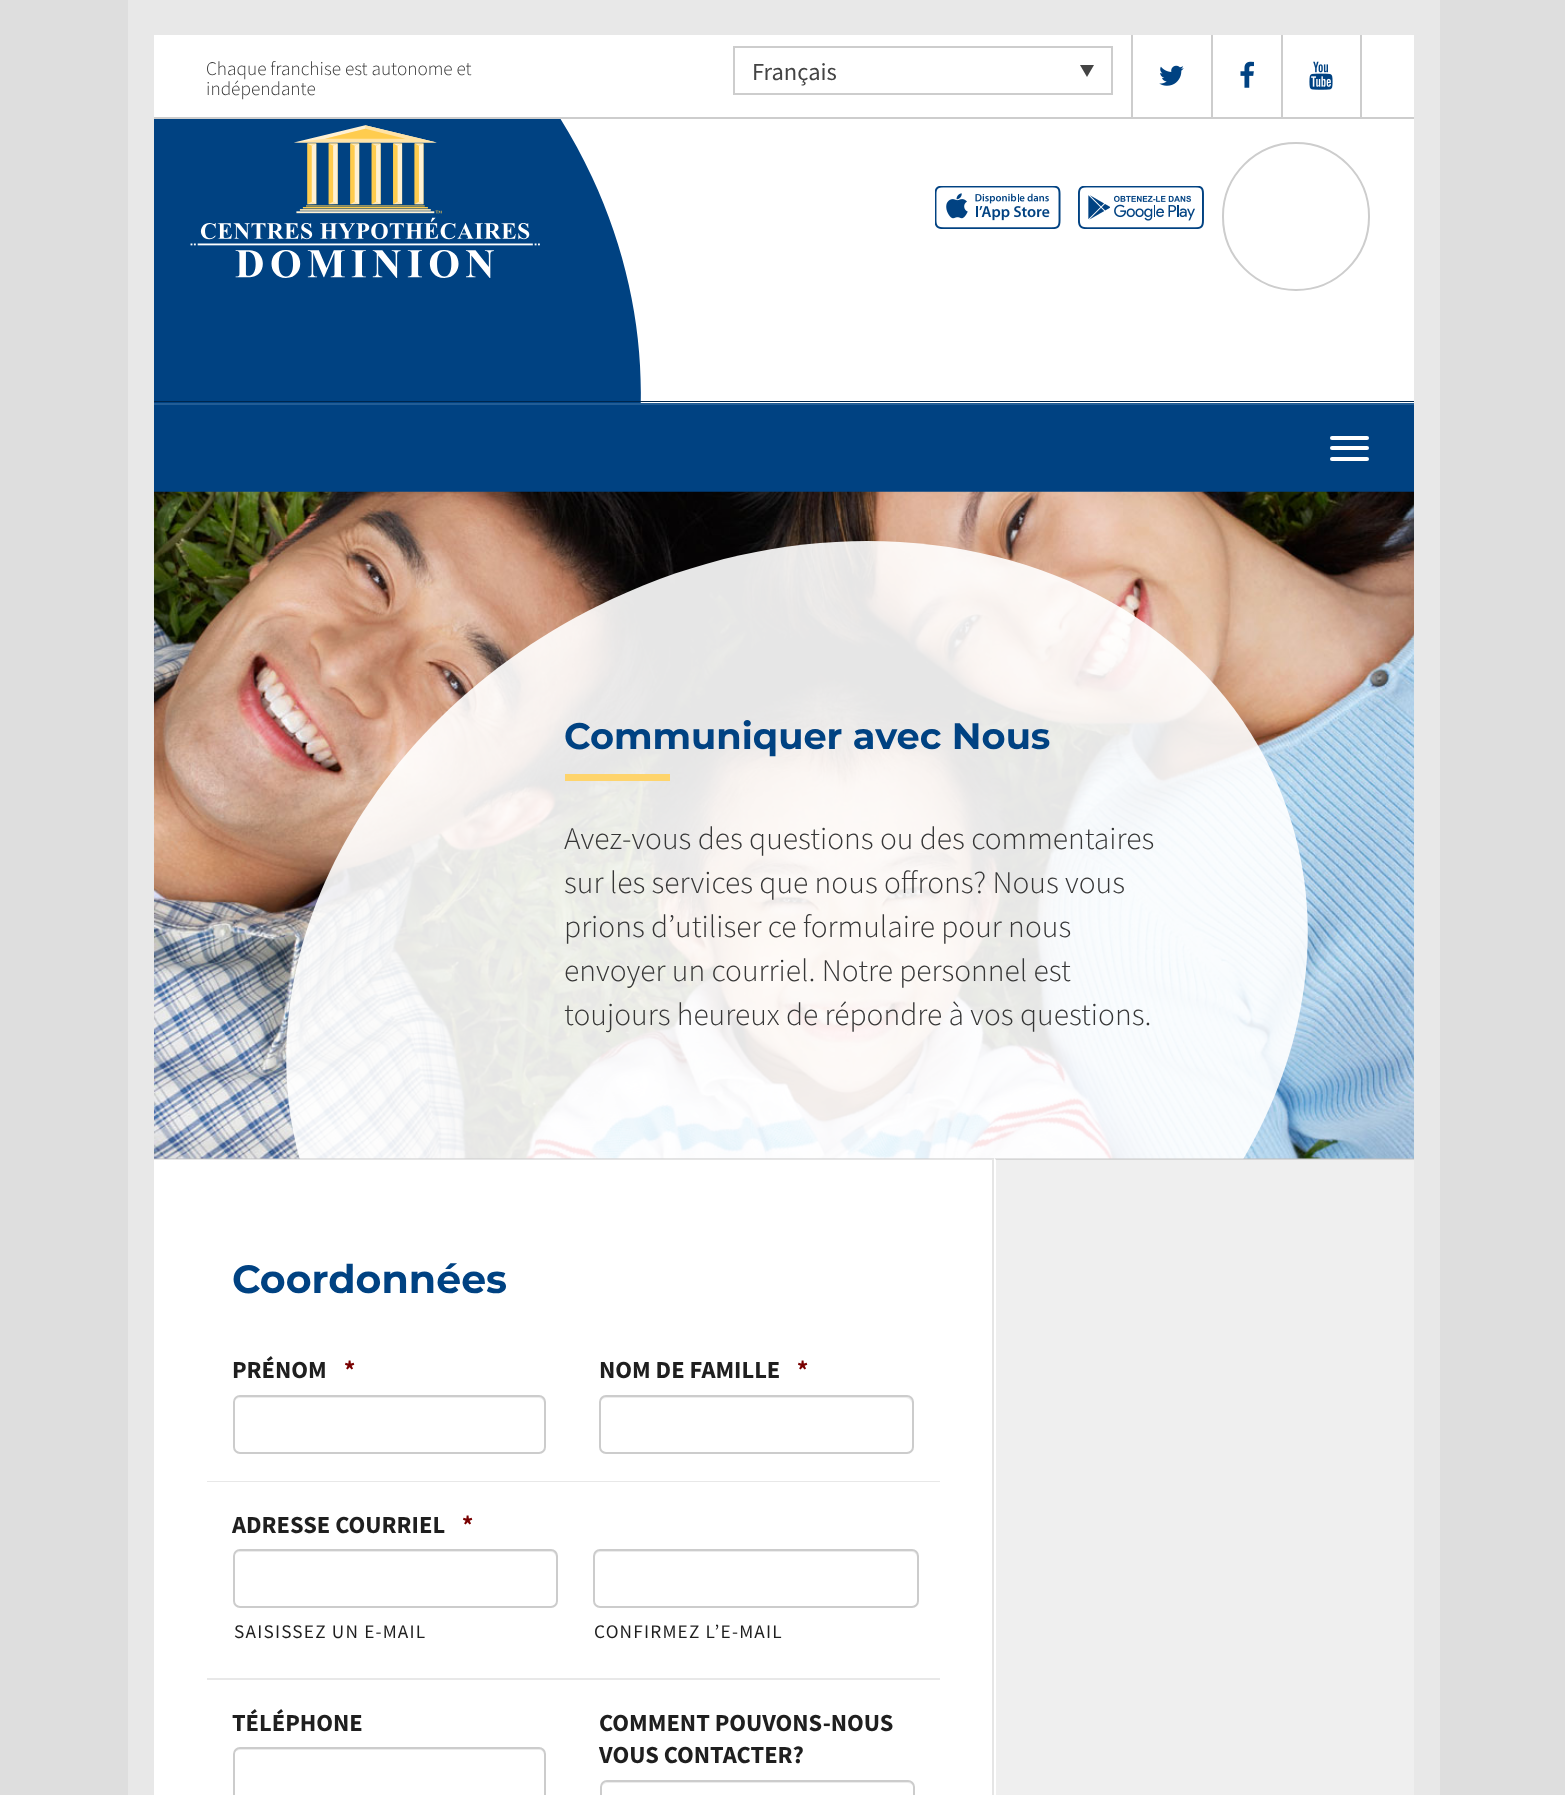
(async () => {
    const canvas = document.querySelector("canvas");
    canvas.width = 1565;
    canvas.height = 1795;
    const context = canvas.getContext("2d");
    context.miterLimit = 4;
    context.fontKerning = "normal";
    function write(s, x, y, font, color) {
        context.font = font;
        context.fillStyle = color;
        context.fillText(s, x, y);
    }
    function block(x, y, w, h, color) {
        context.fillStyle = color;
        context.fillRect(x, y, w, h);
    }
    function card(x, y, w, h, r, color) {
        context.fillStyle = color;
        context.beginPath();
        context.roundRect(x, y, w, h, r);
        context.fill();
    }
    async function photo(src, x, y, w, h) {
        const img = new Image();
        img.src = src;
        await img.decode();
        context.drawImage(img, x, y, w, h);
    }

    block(0, 0, 1565, 1795, "rgb(222, 222, 222)");
    block(128, 0, 1312, 1795, "rgb(232, 232, 232)");
    block(154, 35, 1260, 82, "rgb(255, 255, 255)");
    block(154, 117, 1260, 2, "rgb(205, 205, 205)");
    write("Chaque franchise est autonome et", 206, 75, "300 19.25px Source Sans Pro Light", "rgb(54, 54, 54)");
    write("indépendante", 206, 95, "300 19.25px Source Sans Pro Light", "rgb(54, 54, 54)");
    context.strokeStyle = "rgb(205, 205, 205)";
    context.lineWidth = 2;
    context.strokeRect(734, 47, 378, 47);
    write("Français", 752, 80, "24.5px Source Sans Pro", "rgb(68, 68, 68)");
    context.beginPath();
    context.moveTo(1080, 65);
    context.lineTo(1094, 65);
    context.lineTo(1087, 77);
    context.closePath();
    context.fill();
    block(1131, 35, 2, 82, "rgb(205, 205, 205)");
    await photo("media/1.png", 1159, 65, 25, 21);
    block(1211, 35, 2, 82, "rgb(205, 205, 205)");
    await photo("media/2.png", 1240, 61, 14, 27);
    block(1360, 35, 2, 82, "rgb(205, 205, 205)");
    block(1281, 35, 2, 82, "rgb(205, 205, 205)");
    await photo("media/3.png", 1309, 61, 24, 29);
    block(560, 119, 854, 284, "rgb(255, 255, 255)");
    context.save();
    context.beginPath();
    context.rect(154, 119, 499, 284);
    context.clip();
    context.fillStyle = "rgb(0, 66, 130)";
    context.beginPath();
    context.moveTo(82, -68);
    context.bezierCurveTo(262, -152, 490, -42, 592, 177);
    context.bezierCurveTo(694, 396, 631, 642, 452, 725);
    context.bezierCurveTo(272, 809, 44, 699, -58, 480);
    context.bezierCurveTo(-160, 261, -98, 16, 82, -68);
    context.closePath();
    context.fill();
    context.restore();
    await photo("media/4.png", 190, 125, 350, 153);
    await photo("media/5.png", 935, 186, 126, 43);
    await photo("media/6.png", 1078, 186, 126, 43);
    context.beginPath();
    context.roundRect(1223, 143, 146, 147, 73);
    context.stroke();
    block(154, 401, 1260, 1, "rgb(0, 39, 78)");
    block(154, 405, 1260, 87, "rgb(0, 66, 130)");
    block(154, 403, 1260, 2, "rgb(34, 93, 150)");
    card(1330, 436, 39, 4, 2, "rgb(255, 255, 255)");
    card(1330, 446, 39, 4, 2, "rgb(255, 255, 255)");
    card(1330, 457, 39, 4, 2, "rgb(255, 255, 255)");
    await photo("media/7.png", 154, 491, 1260, 668);
    context.fillStyle = "rgba(255, 255, 255, 0.9)";
    context.beginPath();
    context.moveTo(612, 599);
    context.bezierCurveTo(875, 476, 1171, 555, 1273, 774);
    context.bezierCurveTo(1375, 993, 1245, 1269, 982, 1392);
    context.bezierCurveTo(719, 1515, 423, 1436, 321, 1217);
    context.bezierCurveTo(219, 998, 349, 722, 612, 599);
    context.closePath();
    context.fill();
    write("Communiquer avec Nous", 564, 749, "bold 36.75px Montserrat", "rgb(0, 66, 130)");
    block(565, 774, 105, 7, "rgb(254, 212, 108)");
    write("Avez-vous des questions ou des commentaires", 564, 849, "300 31.5px Source Sans Pro Light", "rgb(54, 54, 54)");
    write("sur les services que nous offrons? Nous vous", 564, 893, "300 31.5px Source Sans Pro Light", "rgb(54, 54, 54)");
    write("prions d’utiliser ce formulaire pour nous", 564, 937, "300 31.5px Source Sans Pro Light", "rgb(54, 54, 54)");
    write("envoyer un courriel. Notre personnel est", 564, 981, "300 31.5px Source Sans Pro Light", "rgb(54, 54, 54)");
    write("toujours heureux de répondre à vos questions.", 564, 1025, "300 31.5px Source Sans Pro Light", "rgb(54, 54, 54)");
    block(154, 1159, 840, 636, "rgb(255, 255, 255)");
    context.fillStyle = "rgba(0, 0, 0, 0.1)";
    context.beginPath();
    context.moveTo(154, 1158);
    context.lineTo(994, 1158);
    context.lineTo(992, 1160);
    context.lineTo(154, 1160);
    context.closePath();
    context.fill();
    context.beginPath();
    context.moveTo(994, 1158);
    context.lineTo(994, 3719);
    context.lineTo(992, 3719);
    context.lineTo(992, 1160);
    context.closePath();
    context.fill();
    write("Coordonnées", 232, 1293, "bold 39.5px Montserrat", "rgb(0, 66, 130)");
    block(207, 1481, 733, 1, "rgb(232, 232, 232)");
    write("PRÉNOM", 232, 1378, "bold 24.5px Source Sans Pro", "rgb(31, 31, 31)");
    write("*", 344, 1378, "bold 24.5px Source Sans Pro", "rgb(121, 0, 0)");
    context.fillStyle = "rgb(236, 236, 236)";
    context.beginPath();
    context.moveTo(240, 1398);
    context.lineTo(539, 1398);
    context.bezierCurveTo(542, 1398, 544, 1401, 544, 1404);
    context.lineTo(544, 1402);
    context.bezierCurveTo(544, 1399, 542, 1397, 539, 1397);
    context.lineTo(240, 1397);
    context.bezierCurveTo(238, 1397, 236, 1399, 235, 1401);
    context.bezierCurveTo(236, 1399, 238, 1398, 240, 1398);
    context.closePath();
    context.fill();
    context.beginPath();
    context.roundRect(234, 1396, 311, 57, 6);
    context.strokeStyle = "rgb(204, 204, 204)";
    context.stroke();
    write("NOM DE FAMILLE", 599, 1378, "bold 24.5px Source Sans Pro", "rgb(31, 31, 31)");
    write("*", 797, 1378, "bold 24.5px Source Sans Pro", "rgb(121, 0, 0)");
    context.fillStyle = "rgb(236, 236, 236)";
    context.beginPath();
    context.moveTo(606, 1398);
    context.lineTo(906, 1398);
    context.bezierCurveTo(909, 1398, 912, 1401, 912, 1404);
    context.lineTo(912, 1402);
    context.bezierCurveTo(912, 1399, 910, 1397, 907, 1397);
    context.lineTo(605, 1397);
    context.bezierCurveTo(602, 1397, 600, 1399, 600, 1402);
    context.lineTo(600, 1404);
    context.bezierCurveTo(600, 1401, 603, 1398, 606, 1398);
    context.closePath();
    context.fill();
    context.beginPath();
    context.roundRect(600, 1396, 313, 57, 6);
    context.stroke();
    block(207, 1678, 733, 2, "rgb(232, 232, 232)");
    write("ADRESSE COURRIEL", 232, 1533, "bold 24.5px Source Sans Pro", "rgb(31, 31, 31)");
    write("*", 462, 1533, "bold 24.5px Source Sans Pro", "rgb(121, 0, 0)");
    context.fillStyle = "rgb(236, 236, 236)";
    context.beginPath();
    context.moveTo(240, 1552);
    context.lineTo(551, 1552);
    context.bezierCurveTo(554, 1552, 556, 1555, 556, 1558);
    context.lineTo(556, 1603);
    context.lineTo(555, 1606);
    context.bezierCurveTo(556, 1605, 557, 1603, 557, 1602);
    context.lineTo(557, 1556);
    context.bezierCurveTo(557, 1553, 555, 1551, 552, 1551);
    context.lineTo(240, 1551);
    context.bezierCurveTo(238, 1551, 236, 1553, 235, 1555);
    context.bezierCurveTo(236, 1553, 238, 1552, 240, 1552);
    context.closePath();
    context.fill();
    context.beginPath();
    context.roundRect(234, 1550, 323, 57, 6);
    context.stroke();
    context.letterSpacing = "1.2px";
    write("SAISISSEZ UN E-MAIL", 234, 1638, "19.25px Source Sans Pro", "rgb(31, 31, 31)");
    context.fillStyle = "rgb(236, 236, 236)";
    context.beginPath();
    context.moveTo(600, 1552);
    context.lineTo(912, 1552);
    context.bezierCurveTo(915, 1552, 917, 1555, 917, 1558);
    context.lineTo(917, 1556);
    context.bezierCurveTo(917, 1553, 915, 1551, 912, 1551);
    context.lineTo(600, 1551);
    context.bezierCurveTo(597, 1551, 595, 1553, 595, 1556);
    context.lineTo(595, 1558);
    context.bezierCurveTo(595, 1555, 597, 1552, 600, 1552);
    context.closePath();
    context.fill();
    context.beginPath();
    context.roundRect(594, 1550, 324, 57, 6);
    context.stroke();
    write("CONFIRMEZ L’E-MAIL", 594, 1638, "19.25px Source Sans Pro", "rgb(31, 31, 31)");
    context.letterSpacing = "0px";
    write("TÉLÉPHONE", 232, 1731, "bold 24.5px Source Sans Pro", "rgb(31, 31, 31)");
    context.fillStyle = "rgb(236, 236, 236)";
    context.beginPath();
    context.moveTo(240, 1750);
    context.lineTo(539, 1750);
    context.bezierCurveTo(542, 1750, 544, 1752, 544, 1755);
    context.lineTo(544, 1753);
    context.bezierCurveTo(544, 1750, 542, 1748, 539, 1748);
    context.lineTo(240, 1748);
    context.bezierCurveTo(238, 1748, 235, 1750, 235, 1752);
    context.bezierCurveTo(236, 1751, 238, 1750, 240, 1750);
    context.closePath();
    context.fill();
    context.beginPath();
    context.roundRect(234, 1748, 311, 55, 6);
    context.stroke();
    write("COMMENT POUVONS-NOUS", 599, 1731, "bold 24.5px Source Sans Pro", "rgb(31, 31, 31)");
    write("VOUS CONTACTER?", 599, 1763, "bold 24.5px Source Sans Pro", "rgb(31, 31, 31)");
    context.fillStyle = "rgb(236, 236, 236)";
    context.beginPath();
    context.moveTo(607, 1783);
    context.lineTo(908, 1783);
    context.bezierCurveTo(911, 1783, 914, 1786, 914, 1788);
    context.bezierCurveTo(914, 1785, 912, 1782, 909, 1782);
    context.lineTo(607, 1782);
    context.bezierCurveTo(604, 1782, 602, 1785, 602, 1788);
    context.bezierCurveTo(602, 1786, 604, 1783, 607, 1783);
    context.closePath();
    context.fill();
    context.beginPath();
    context.roundRect(601, 1781, 313, 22, 6);
    context.stroke();
    block(995, 1159, 419, 636, "rgb(239, 239, 239)");
    context.fillStyle = "rgba(0, 0, 0, 0.1)";
    context.beginPath();
    context.moveTo(994, 1158);
    context.lineTo(1414, 1158);
    context.lineTo(1414, 1160);
    context.lineTo(996, 1160);
    context.closePath();
    context.fill();
    context.fillStyle = "rgb(255, 255, 255)";
    context.beginPath();
    context.moveTo(994, 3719);
    context.lineTo(994, 1158);
    context.lineTo(996, 1160);
    context.lineTo(996, 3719);
    context.closePath();
    context.fill();
})();
